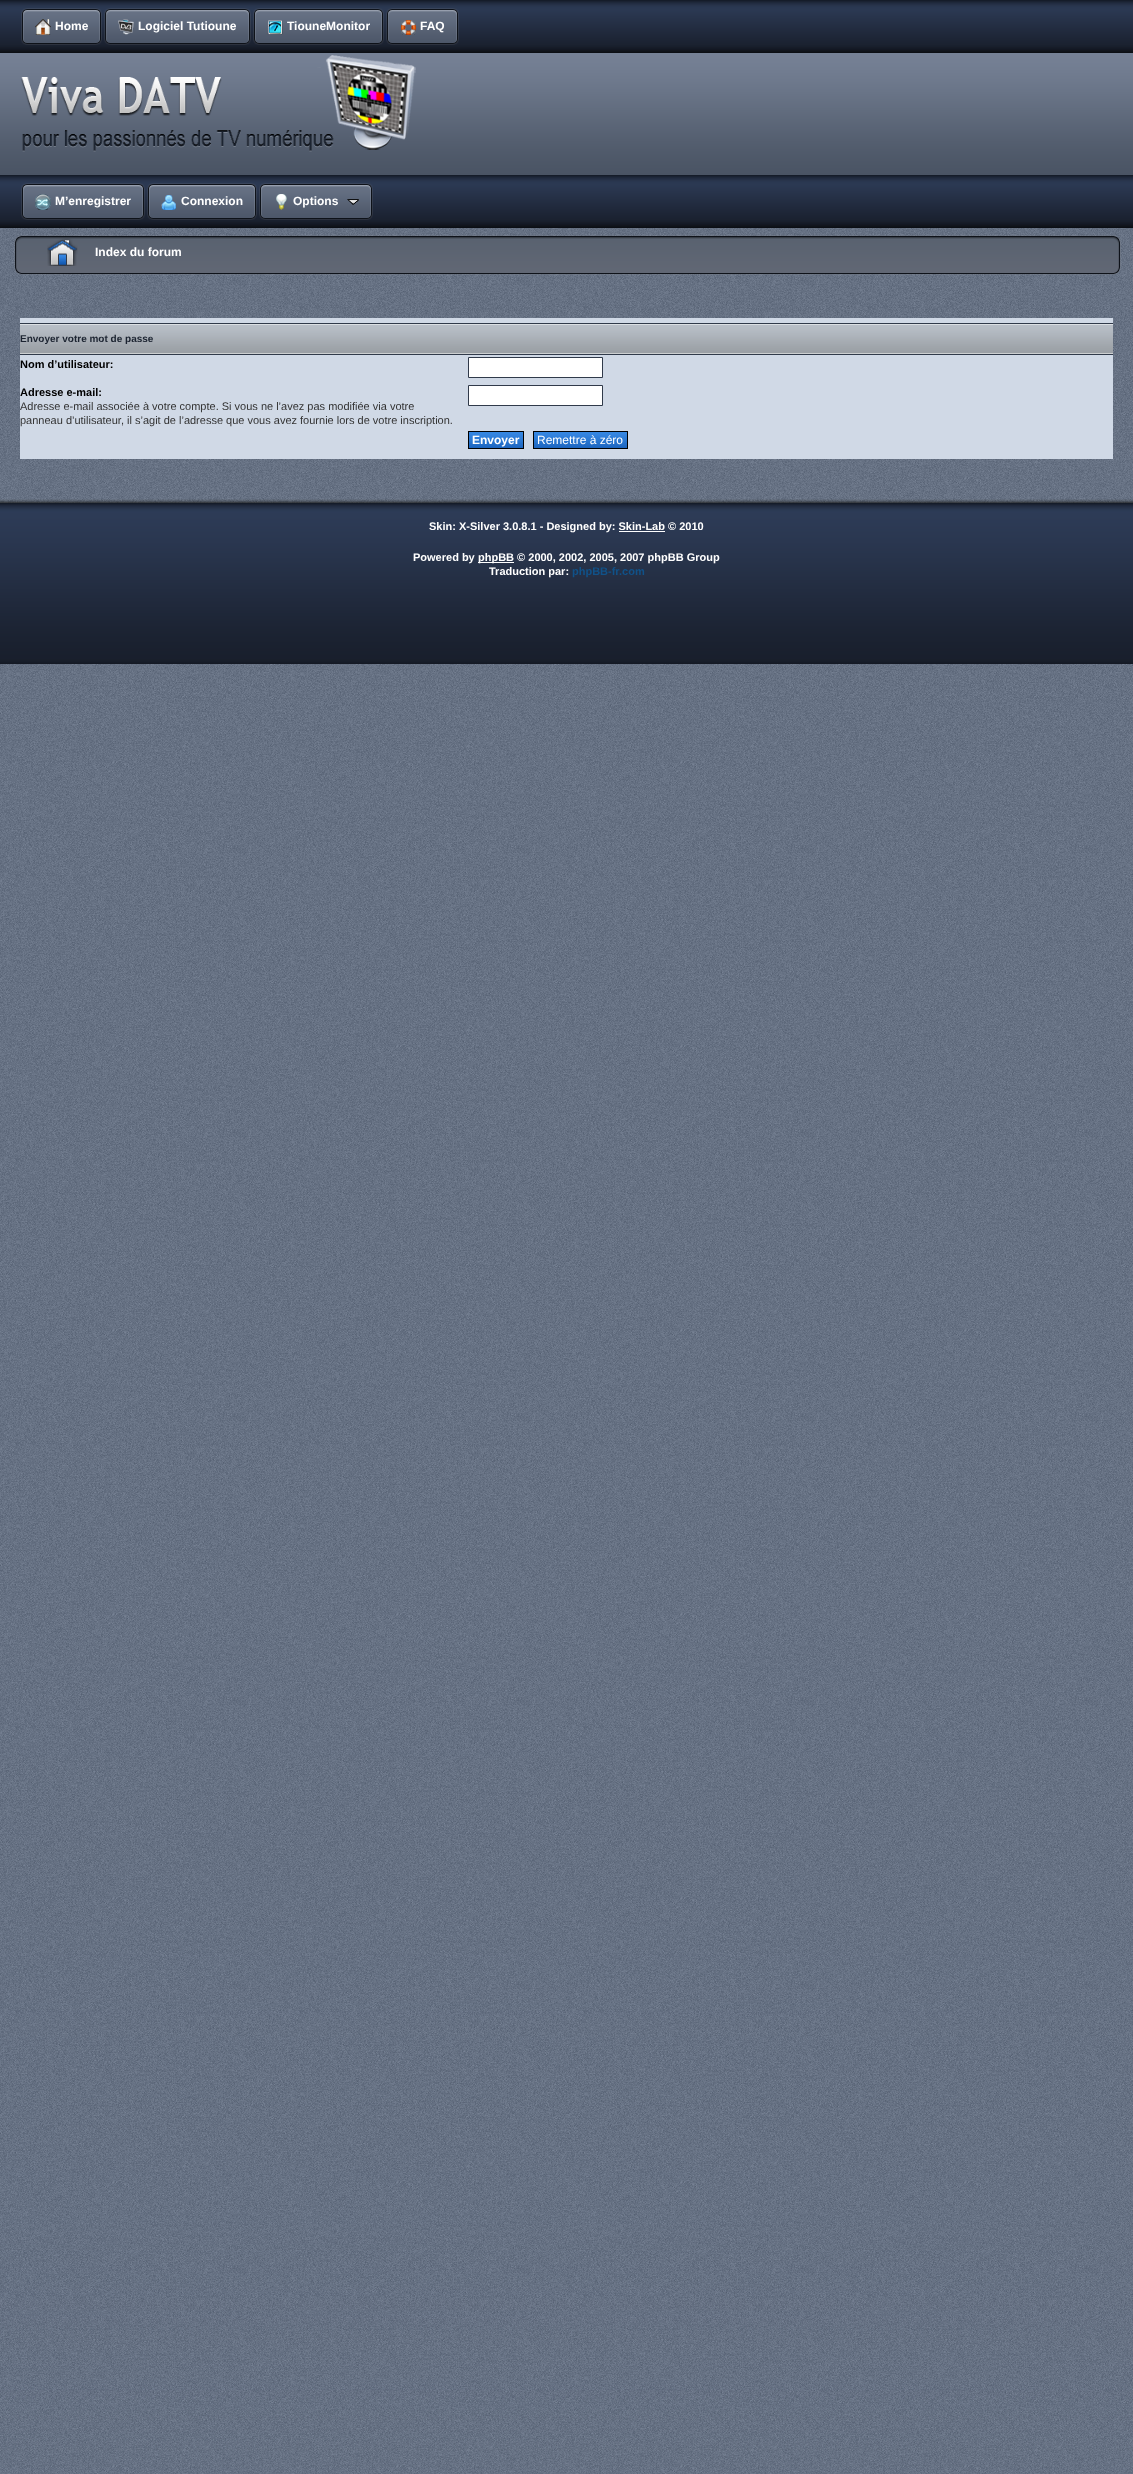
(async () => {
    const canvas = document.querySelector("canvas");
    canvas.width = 1133;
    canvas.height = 2474;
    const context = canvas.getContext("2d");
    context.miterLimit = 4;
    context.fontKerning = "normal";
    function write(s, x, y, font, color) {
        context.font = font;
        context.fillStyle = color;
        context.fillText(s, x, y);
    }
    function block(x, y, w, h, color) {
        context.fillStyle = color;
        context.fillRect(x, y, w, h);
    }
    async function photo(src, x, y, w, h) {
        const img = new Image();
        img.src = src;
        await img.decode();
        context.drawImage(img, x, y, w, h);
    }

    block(0, 0, 1133, 2474, "rgb(255, 255, 255)");
    await photo("media/1.png", 0, 664, 1133, 1810);
    await photo("media/2.png", 0, 228, 1133, 275);
    await photo("media/3.png", 0, 0, 20, 53);
    await photo("media/3.png", 1113, 0, 20, 53);
    await photo("media/4.png", 20, 0, 1093, 53);
    await photo("media/5.png", 88, 8, 14, 37);
    await photo("media/6.png", 21, 8, 67, 37);
    await photo("media/7.png", 35, 19, 16, 16);
    write("Home", 55, 30, "bold 12px Liberation Sans", "rgb(255, 255, 255)");
    await photo("media/5.png", 237, 8, 14, 37);
    await photo("media/8.png", 104, 8, 133, 37);
    await photo("media/9.png", 118, 19, 16, 16);
    write("Logiciel Tutioune", 138, 30, "bold 12px Liberation Sans", "rgb(255, 255, 255)");
    await photo("media/5.png", 370, 8, 14, 37);
    await photo("media/10.png", 253, 8, 117, 37);
    await photo("media/11.png", 267, 20, 16, 15);
    write("TiouneMonitor", 287, 30, "bold 12px Liberation Sans", "rgb(255, 255, 255)");
    await photo("media/5.png", 445, 8, 14, 37);
    await photo("media/12.png", 386, 8, 59, 37);
    await photo("media/13.png", 401, 20, 15, 15);
    write("FAQ", 420, 30, "bold 12px Liberation Sans", "rgb(255, 255, 255)");
    await photo("media/14.png", 0, 53, 20, 122);
    await photo("media/14.png", 1113, 53, 20, 122);
    await photo("media/15.png", 20, 53, 1093, 122);
    await photo("media/16.png", 21, 55, 395, 97);
    await photo("media/3.png", 0, 175, 20, 53);
    await photo("media/3.png", 1113, 175, 20, 53);
    await photo("media/4.png", 20, 175, 1093, 53);
    await photo("media/5.png", 131, 183, 14, 37);
    await photo("media/17.png", 21, 183, 110, 37);
    await photo("media/18.png", 35, 194, 16, 16);
    write("M’enregistrer", 55, 205, "bold 12px Liberation Sans", "rgb(255, 255, 255)");
    await photo("media/5.png", 243, 183, 14, 37);
    await photo("media/19.png", 147, 183, 96, 37);
    await photo("media/20.png", 161, 195, 15, 15);
    write("Connexion", 181, 205, "bold 12px Liberation Sans", "rgb(255, 255, 255)");
    await photo("media/21.png", 338, 183, 35, 37);
    await photo("media/22.png", 259, 183, 79, 37);
    await photo("media/23.png", 276, 194, 11, 16);
    write("Options", 293, 205, "bold 12px Liberation Sans", "rgb(255, 255, 255)");
    await photo("media/24.png", 14, 235, 26, 40);
    await photo("media/25.png", 1093, 235, 28, 40);
    await photo("media/26.png", 40, 235, 1053, 40);
    await photo("media/27.png", 47, 238, 31, 28);
    write("Index du forum", 95, 256, "bold 12px Liberation Sans", "rgb(255, 255, 255)");
    block(20, 318, 1093, 141, "rgb(208, 217, 230)");
    await photo("media/28.png", 20, 323, 1093, 32);
    write("Envoyer votre mot de passe", 20, 342, "bold 10px Liberation Sans", "rgb(28, 36, 49)");
    write("Nom d’utilisateur:", 20, 368, "bold 11px Liberation Sans", "rgb(0, 0, 0)");
    context.fillStyle = "rgb(255, 255, 255)";
    context.beginPath();
    context.rect(468.5, 357.5, 134, 20);
    context.fill();
    context.strokeStyle = "rgb(48, 58, 74)";
    context.stroke();
    write("Adresse e-mail:", 20, 396, "bold 11px Liberation Sans", "rgb(0, 0, 0)");
    write("Adresse e-mail associée à votre compte. Si vous ne l’avez pas modifiée via votre", 20, 410, "11px Liberation Sans", "rgb(51, 51, 51)");
    write("panneau d’utilisateur, il s’agit de l’adresse que vous avez fournie lors de votre inscription.", 20, 424, "11px Liberation Sans", "rgb(51, 51, 51)");
    context.fillStyle = "rgb(255, 255, 255)";
    context.beginPath();
    context.rect(468.5, 385.5, 134, 20);
    context.fill();
    context.stroke();
    await photo("media/29.png", 469, 432, 54, 16);
    context.strokeStyle = "rgb(0, 0, 0)";
    context.strokeRect(468.5, 431.5, 55, 17);
    write("Envoyer", 472, 444, "bold 12px Liberation Sans", "rgb(255, 255, 255)");
    await photo("media/30.png", 534, 432, 93, 16);
    context.strokeRect(533.5, 431.5, 94, 17);
    write("Remettre à zéro", 537, 444, "12px Liberation Sans", "rgb(255, 255, 255)");
    await photo("media/31.png", 0, 499, 5, 165);
    await photo("media/32.png", 1128, 499, 5, 165);
    await photo("media/33.png", 5, 499, 1123, 165);
    write("Skin: X-Silver 3.0.8.1 - Designed by: Skin-Lab © 2010", 429, 530, "bold 11px Liberation Sans", "rgb(255, 255, 255)");
    block(619, 531, 46, 1, "rgb(255, 255, 255)");
    write("Powered by", 413, 561, "bold 11px Liberation Sans", "rgb(255, 255, 255)");
    block(478, 562, 36, 1, "rgb(255, 255, 255)");
    write("phpBB © 2000, 2002, 2005, 2007 phpBB Group", 478, 561, "bold 11px Liberation Sans", "rgb(255, 255, 255)");
    write("Traduction par:", 489, 575, "bold 11px Liberation Sans", "rgb(255, 255, 255)");
    write("phpBB-fr.com", 572, 575, "bold 11px Liberation Sans", "rgb(16, 82, 137)");
})();
